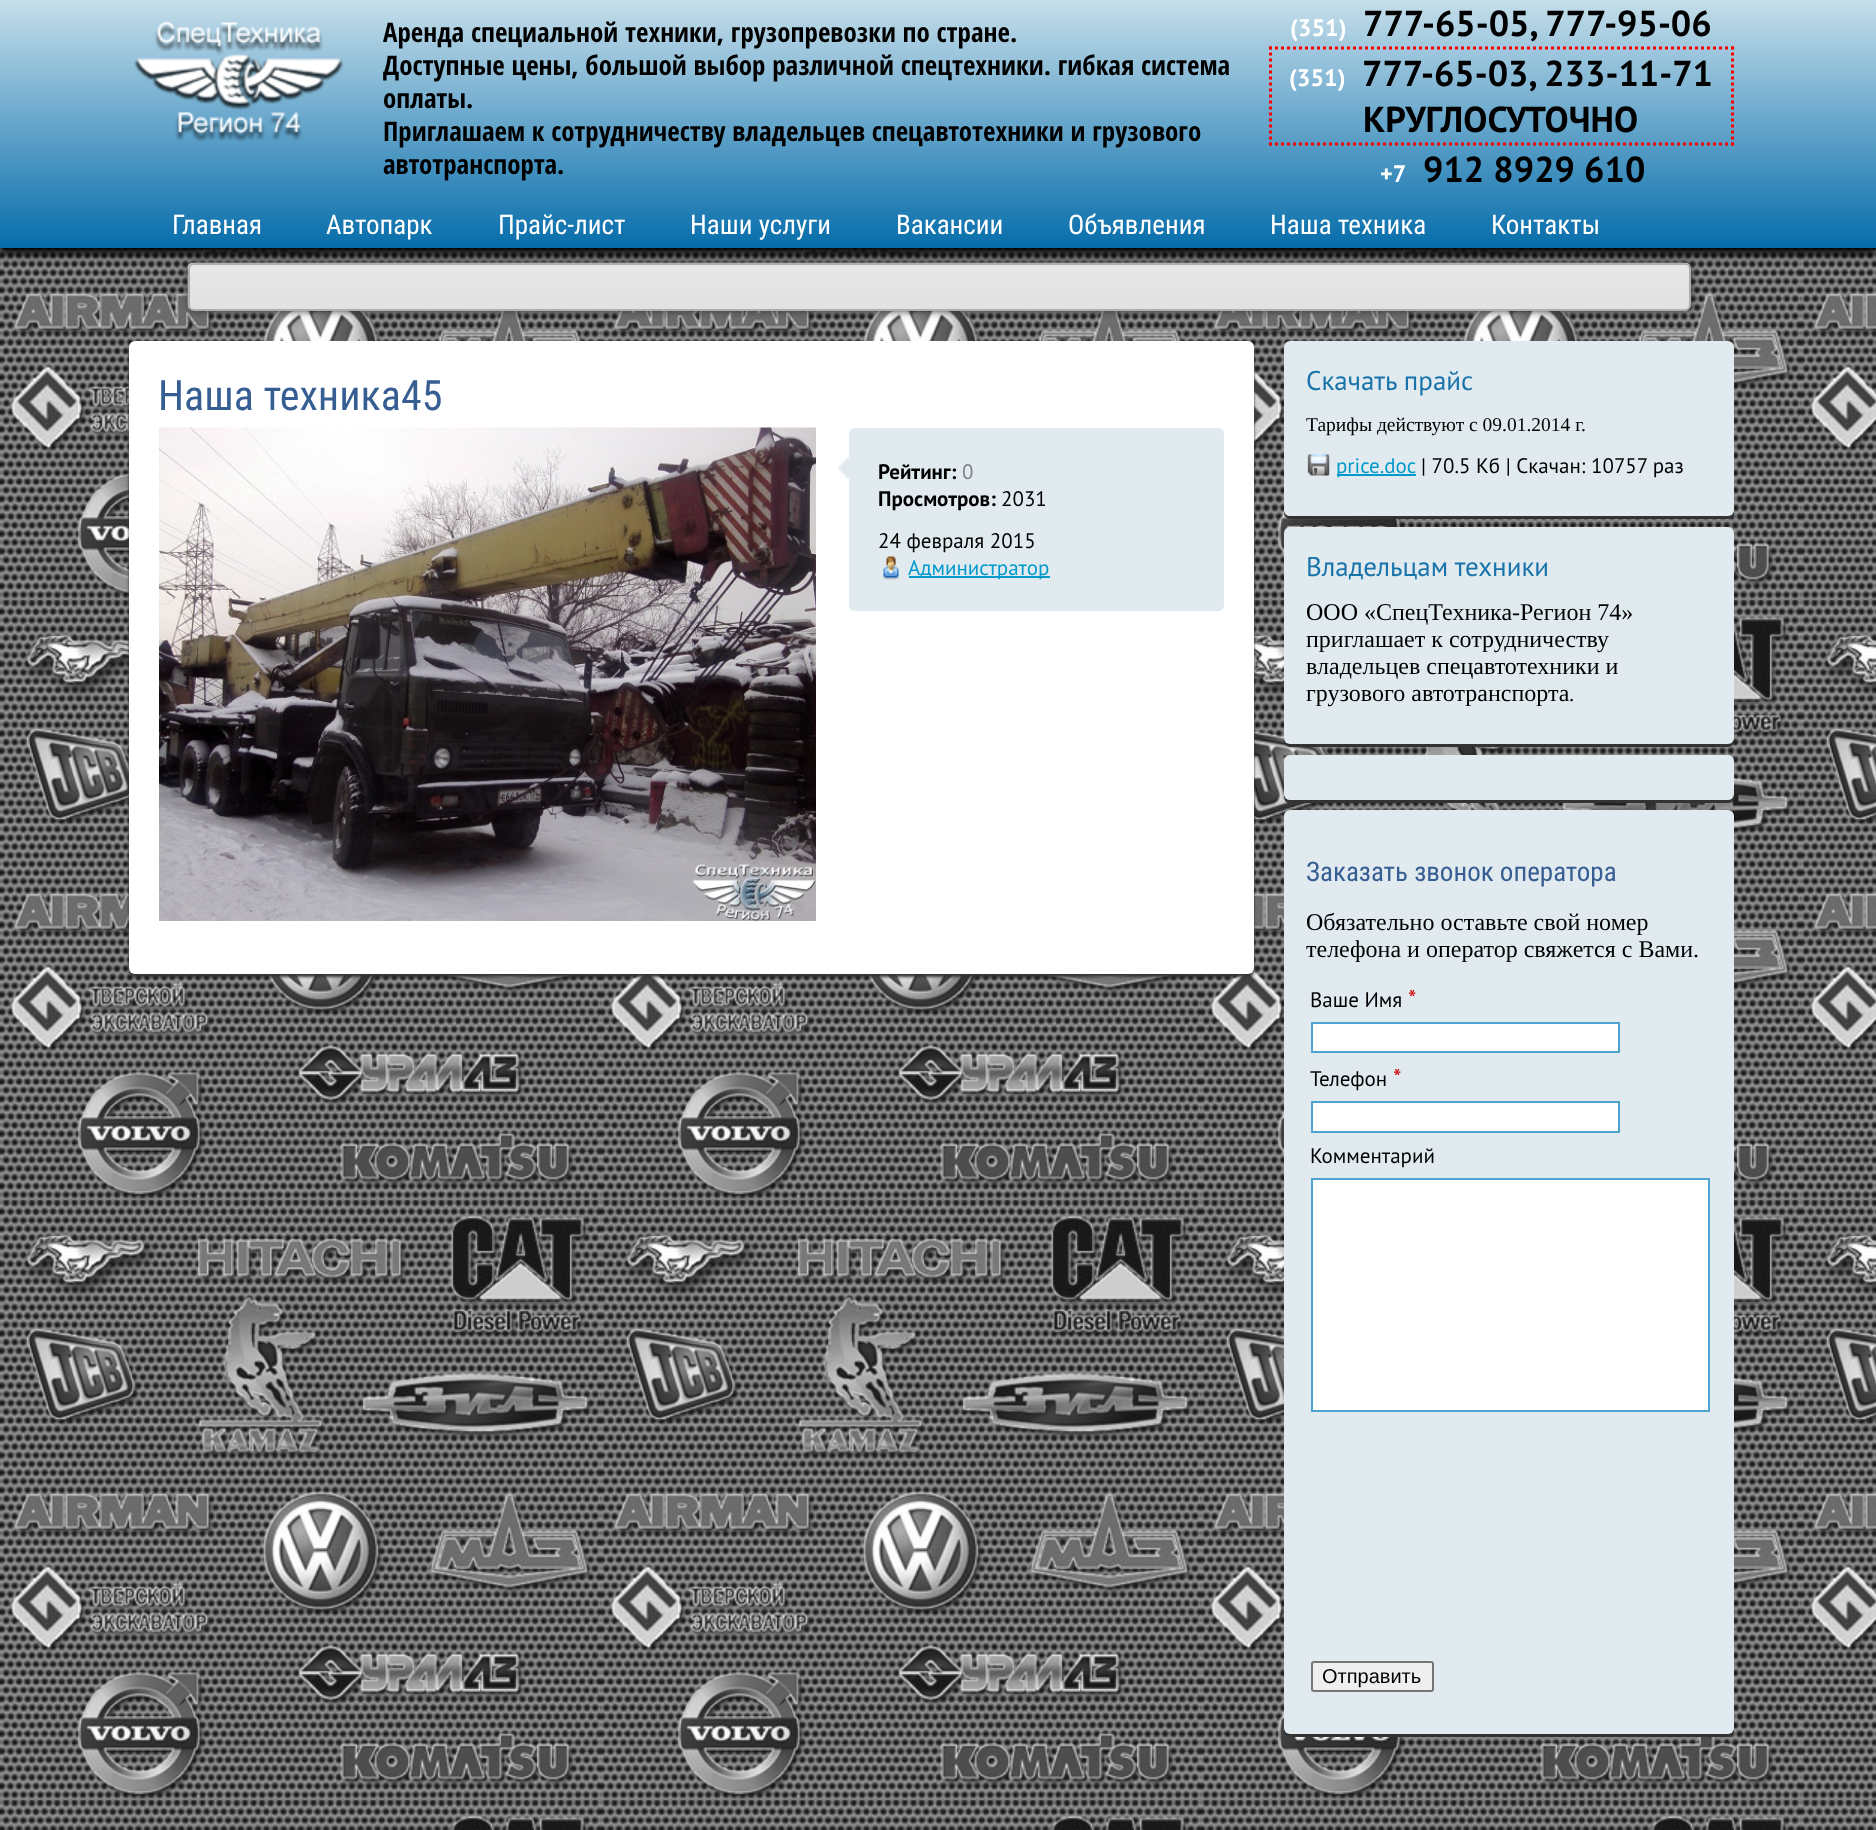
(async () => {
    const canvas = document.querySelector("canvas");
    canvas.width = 1876;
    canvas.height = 1830;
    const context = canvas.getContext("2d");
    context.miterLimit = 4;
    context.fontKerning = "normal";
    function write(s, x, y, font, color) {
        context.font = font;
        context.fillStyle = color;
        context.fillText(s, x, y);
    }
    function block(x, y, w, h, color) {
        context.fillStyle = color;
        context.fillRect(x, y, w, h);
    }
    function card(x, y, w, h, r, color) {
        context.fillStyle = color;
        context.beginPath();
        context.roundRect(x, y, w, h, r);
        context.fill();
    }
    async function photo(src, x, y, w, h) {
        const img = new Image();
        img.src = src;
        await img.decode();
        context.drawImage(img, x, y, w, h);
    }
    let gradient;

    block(0, 0, 1876, 1830, "rgb(255, 255, 255)");
    await photo("media/1.png", 0, 248, 1876, 1582);
    context.fillStyle = "rgb(51, 51, 51)";
    context.filter = "blur(4px)";
    context.beginPath();
    context.roundRect(188, 263, 1503, 48, 6);
    context.fill();
    context.filter = "none";
    await photo("media/3.png", 187, 262, 1504, 47);
    context.beginPath();
    context.roundRect(189, 264, 1501, 46, 5);
    context.strokeStyle = "rgb(174, 174, 174)";
    context.lineWidth = 2;
    context.stroke();
    context.fillStyle = "rgb(0, 0, 0)";
    context.filter = "blur(4px)";
    context.beginPath();
    context.rect(-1, 3, 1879, 251);
    context.fill();
    context.filter = "none";
    gradient = context.createLinearGradient(938, 0, 938, 248);
    gradient.addColorStop(0, "rgb(197, 222, 234)");
    gradient.addColorStop(0.31, "rgb(138, 187, 215)");
    gradient.addColorStop(1, "rgb(6, 109, 171)");
    context.fillStyle = gradient;
    context.fillRect(0, 0, 1876, 248);
    await photo("media/2.png", 134, 21, 210, 121);
    write("Аренда специальной техники, грузопревозки по стране.", 383, 42, "bold 27px Open Sans Condensed", "rgb(0, 0, 0)");
    write("Доступные цены, большой выбор различной спецтехники. гибкая система", 383, 75, "bold 27px Open Sans Condensed", "rgb(0, 0, 0)");
    write("оплаты.", 383, 108, "bold 27px Open Sans Condensed", "rgb(0, 0, 0)");
    write("Приглашаем к сотрудничеству владельцев спецавтотехники и грузового", 383, 141, "bold 27px Open Sans Condensed", "rgb(0, 0, 0)");
    write("автотранспорта.", 383, 174, "bold 27px Open Sans Condensed", "rgb(0, 0, 0)");
    write("(351)", 1290, 36, "bold 24px PT Sans", "rgb(255, 255, 255)");
    write("777-65-05, 777-95-06", 1363, 36, "bold 36px PT Sans", "rgb(0, 0, 0)");
    context.beginPath();
    context.moveTo(1269, 48);
    context.lineTo(1734, 48);
    context.strokeStyle = "rgb(255, 0, 0)";
    context.lineWidth = 3;
    context.setLineDash([3, 3]);
    context.stroke();
    context.beginPath();
    context.moveTo(1732.5, 46.5);
    context.lineTo(1732.5, 145.5);
    context.stroke();
    context.beginPath();
    context.moveTo(1269, 144);
    context.lineTo(1734, 144);
    context.stroke();
    context.beginPath();
    context.moveTo(1270.5, 46.5);
    context.lineTo(1270.5, 145.5);
    context.stroke();
    write("(351)", 1289, 86, "bold 24px PT Sans", "rgb(255, 255, 255)");
    write("777-65-03, 233-11-71", 1362, 86, "bold 36px PT Sans", "rgb(0, 0, 0)");
    write("КРУГЛОСУТОЧНО", 1363, 132, "bold 36px PT Sans", "rgb(0, 0, 0)");
    write("+7", 1380, 182, "bold 24px PT Sans", "rgb(255, 255, 255)");
    write("912 8929 610", 1423, 182, "bold 36px PT Sans", "rgb(0, 0, 0)");
    write("Главная", 172, 234, "27px Roboto Condensed", "rgb(255, 255, 255)");
    write("Автопарк", 326, 234, "27px Roboto Condensed", "rgb(255, 255, 255)");
    write("Прайс-лист", 498, 234, "27px Roboto Condensed", "rgb(255, 255, 255)");
    write("Наши услуги", 690, 234, "27px Roboto Condensed", "rgb(255, 255, 255)");
    write("Вакансии", 896, 234, "27px Roboto Condensed", "rgb(255, 255, 255)");
    write("Объявления", 1068, 234, "27px Roboto Condensed", "rgb(255, 255, 255)");
    write("Наша техника", 1270, 234, "27px Roboto Condensed", "rgb(255, 255, 255)");
    write("Контакты", 1491, 234, "27px Roboto Condensed", "rgb(255, 255, 255)");
    context.fillStyle = "rgb(51, 51, 51)";
    context.filter = "blur(1.5px)";
    context.beginPath();
    context.roundRect(129, 344, 1125, 633, 6);
    context.fill();
    context.filter = "none";
    card(129, 341, 1125, 633, 6, "rgb(255, 255, 255)");
    write("Наша техника45", 158, 410, "42px Roboto Condensed", "rgb(55, 94, 147)");
    await photo("media/4.png", 159, 427, 657, 494);
    await photo("media/5.png", 838, 457, 11, 22);
    card(849, 428, 375, 183, 6, "rgb(224, 234, 239)");
    write("Рейтинг:", 878, 479, "bold 21px PT Sans", "rgb(0, 0, 0)");
    write("0", 962, 479, "21px PT Sans", "rgb(128, 128, 128)");
    write("Просмотров:", 878, 506, "bold 21px PT Sans", "rgb(0, 0, 0)");
    write("2031", 1001, 506, "21px PT Sans", "rgb(0, 0, 0)");
    write("24 февраля 2015", 878, 548, "21px PT Sans", "rgb(0, 0, 0)");
    await photo("media/6.png", 883, 556, 16, 24);
    block(909, 576, 141, 2, "rgb(0, 153, 204)");
    write("Администратор", 908, 575, "21px PT Sans", "rgb(0, 153, 204)");
    context.fillStyle = "rgb(51, 51, 51)";
    context.beginPath();
    context.moveTo(1284, 510);
    context.lineTo(1284, 513);
    context.bezierCurveTo(1284, 516, 1287, 519, 1290, 519);
    context.lineTo(1728, 519);
    context.bezierCurveTo(1731, 519, 1734, 516, 1734, 513);
    context.lineTo(1734, 510);
    context.bezierCurveTo(1734, 513, 1731, 516, 1728, 516);
    context.lineTo(1290, 516);
    context.bezierCurveTo(1287, 516, 1284, 513, 1284, 510);
    context.closePath();
    context.fill();
    card(1284, 341, 450, 175, 6, "rgb(224, 234, 239)");
    write("Скачать прайс", 1306, 390, "27px PT Sans", "rgb(24, 115, 170)");
    write("Тарифы действуют с 09.01.2014 г.", 1306, 431, "19.5px Liberation Serif", "rgb(0, 0, 0)");
    await photo("media/7.png", 1307, 454, 23, 22);
    block(1337, 474, 79, 2, "rgb(0, 153, 204)");
    write("price.doc", 1336, 473, "21px PT Sans", "rgb(0, 153, 204)");
    write("| 70.5 Кб | Скачан: 10757 раз", 1421, 473, "21px PT Sans", "rgb(0, 0, 0)");
    context.fillStyle = "rgb(51, 51, 51)";
    context.beginPath();
    context.moveTo(1284, 738);
    context.lineTo(1284, 741);
    context.bezierCurveTo(1284, 744, 1287, 747, 1290, 747);
    context.lineTo(1728, 747);
    context.bezierCurveTo(1731, 747, 1734, 744, 1734, 741);
    context.lineTo(1734, 738);
    context.bezierCurveTo(1734, 741, 1731, 744, 1728, 744);
    context.lineTo(1290, 744);
    context.bezierCurveTo(1287, 744, 1284, 741, 1284, 738);
    context.closePath();
    context.fill();
    card(1284, 527, 450, 217, 6, "rgb(224, 234, 239)");
    write("Владельцам техники", 1306, 576, "27px PT Sans", "rgb(24, 115, 170)");
    write("ООО «СпецТехника-Регион 74»", 1306, 620, "24px Liberation Serif", "rgb(0, 0, 0)");
    write("приглашает к сотрудничеству", 1306, 647, "24px Liberation Serif", "rgb(0, 0, 0)");
    write("владельцев спецавтотехники и", 1306, 674, "24px Liberation Serif", "rgb(0, 0, 0)");
    write("грузового автотранспорта", 1306, 701, "24px Liberation Serif", "rgb(0, 0, 0)");
    write(".", 1569, 701, "21px Liberation Serif", "rgb(0, 0, 0)");
    context.fillStyle = "rgb(51, 51, 51)";
    context.beginPath();
    context.moveTo(1284, 794);
    context.bezierCurveTo(1284, 798, 1284, 803, 1290, 803);
    context.lineTo(1728, 803);
    context.bezierCurveTo(1734, 803, 1734, 798, 1734, 794);
    context.bezierCurveTo(1734, 797, 1731, 800, 1728, 800);
    context.lineTo(1290, 800);
    context.bezierCurveTo(1287, 800, 1284, 797, 1284, 794);
    context.closePath();
    context.fill();
    card(1284, 755, 450, 45, 6, "rgb(224, 234, 239)");
    context.fillStyle = "rgb(51, 51, 51)";
    context.beginPath();
    context.moveTo(1284, 1728);
    context.lineTo(1284, 1731);
    context.bezierCurveTo(1284, 1734, 1287, 1737, 1290, 1737);
    context.lineTo(1728, 1737);
    context.bezierCurveTo(1731, 1737, 1734, 1734, 1734, 1731);
    context.lineTo(1734, 1728);
    context.bezierCurveTo(1734, 1731, 1731, 1734, 1728, 1734);
    context.lineTo(1290, 1734);
    context.bezierCurveTo(1287, 1734, 1284, 1731, 1284, 1728);
    context.closePath();
    context.fill();
    card(1284, 810, 450, 924, 6, "rgb(224, 234, 239)");
    write("Заказать звонок оператора", 1306, 881, "27px Roboto Condensed", "rgb(55, 94, 147)");
    write("Обязательно оставьте свой номер", 1306, 930, "24px Liberation Serif", "rgb(0, 0, 0)");
    write("телефона и оператор свяжется с Вами.", 1306, 957, "24px Liberation Serif", "rgb(0, 0, 0)");
    write("Ваше Имя", 1310, 1007, "21px PT Sans", "rgb(0, 0, 0)");
    write("*", 1408, 1007, "24px PT Sans", "rgb(204, 0, 0)");
    context.fillStyle = "rgb(255, 255, 255)";
    context.beginPath();
    context.rect(1312, 1023, 307, 29);
    context.fill();
    context.strokeStyle = "rgb(77, 164, 207)";
    context.lineWidth = 2;
    context.setLineDash([]);
    context.stroke();
    write("Телефон", 1310, 1086, "21px PT Sans", "rgb(0, 0, 0)");
    write("*", 1393, 1086, "24px PT Sans", "rgb(204, 0, 0)");
    context.fillStyle = "rgb(255, 255, 255)";
    context.beginPath();
    context.rect(1312, 1102, 307, 30);
    context.fill();
    context.stroke();
    write("Комментарий", 1310, 1163, "21px PT Sans", "rgb(0, 0, 0)");
    context.fillStyle = "rgb(255, 255, 255)";
    context.beginPath();
    context.rect(1312, 1179, 397, 232);
    context.fill();
    context.stroke();
    context.fillStyle = "rgb(239, 239, 239)";
    context.beginPath();
    context.roundRect(1312, 1662, 121, 29, 2);
    context.fill();
    context.strokeStyle = "rgb(118, 118, 118)";
    context.stroke();
    write("Отправить", 1322, 1683, "20px Liberation Sans", "rgb(0, 0, 0)");
})();
